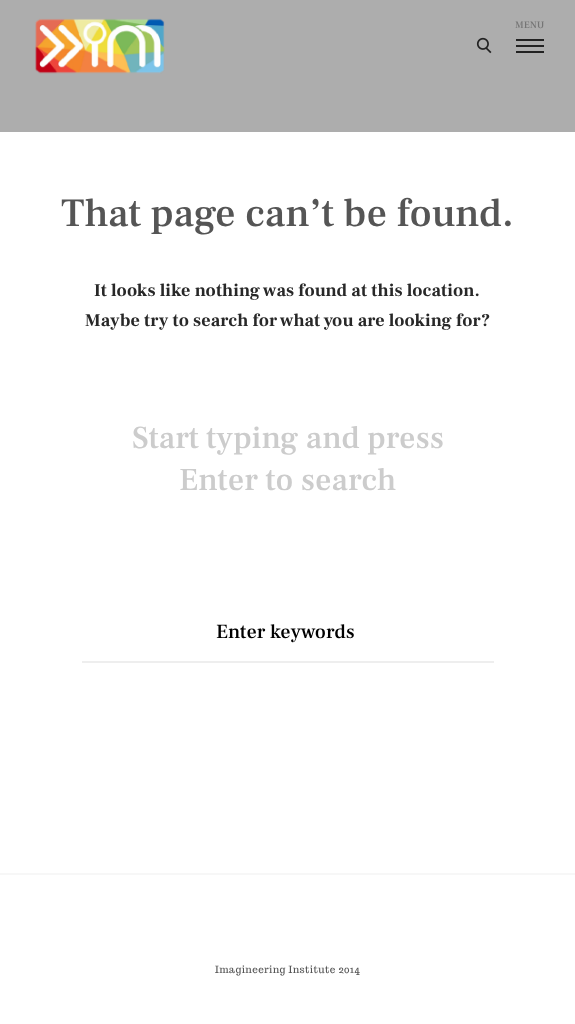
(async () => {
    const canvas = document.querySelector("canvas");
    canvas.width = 575;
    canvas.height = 1024;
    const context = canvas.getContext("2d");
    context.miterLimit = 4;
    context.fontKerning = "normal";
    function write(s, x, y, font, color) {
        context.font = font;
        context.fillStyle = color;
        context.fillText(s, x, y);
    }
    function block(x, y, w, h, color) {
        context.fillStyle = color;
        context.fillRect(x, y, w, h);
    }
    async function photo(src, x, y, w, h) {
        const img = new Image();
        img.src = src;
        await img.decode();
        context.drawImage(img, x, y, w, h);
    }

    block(0, 0, 575, 1024, "rgb(255, 255, 255)");
    block(0, 0, 575, 132, "rgb(173, 173, 173)");
    await photo("media/1.png", 35, 18, 130, 56);
    write("MENU", 515, 28, "500 10px Frank Ruhl Libre", "rgb(117, 117, 117)");
    block(516, 39, 28, 2, "rgb(34, 34, 34)");
    block(516, 45, 28, 2, "rgb(34, 34, 34)");
    block(516, 51, 28, 2, "rgb(34, 34, 34)");
    await photo("media/2.png", 476, 37, 16, 17);
    write("That page can’t be found.", 61, 226, "500 40px Frank Ruhl Libre", "rgb(85, 85, 85)");
    context.letterSpacing = "0.1px";
    write("It looks like nothing was found at this location.", 94, 296, "bold 18px Frank Ruhl Libre", "rgb(40, 40, 40)");
    write("Maybe try to search for what you are looking for?", 85, 326, "bold 18px Frank Ruhl Libre", "rgb(40, 40, 40)");
    context.letterSpacing = "0px";
    write("Start typing and press", 132, 448, "500 32px Frank Ruhl Libre", "rgb(204, 204, 204)");
    write("Enter to search", 179, 490, "500 32px Frank Ruhl Libre", "rgb(204, 204, 204)");
    block(82, 661, 412, 2, "rgb(238, 238, 238)");
    write("Enter keywords", 216, 638, "500 20px Frank Ruhl Libre", "rgb(0, 0, 0)");
    block(0, 873, 575, 2, "rgb(247, 247, 247)");
    context.letterSpacing = "0.4px";
    write("Imagineering Institute 2014", 215, 973, "10px Trocchi", "rgb(85, 85, 85)");
})();
